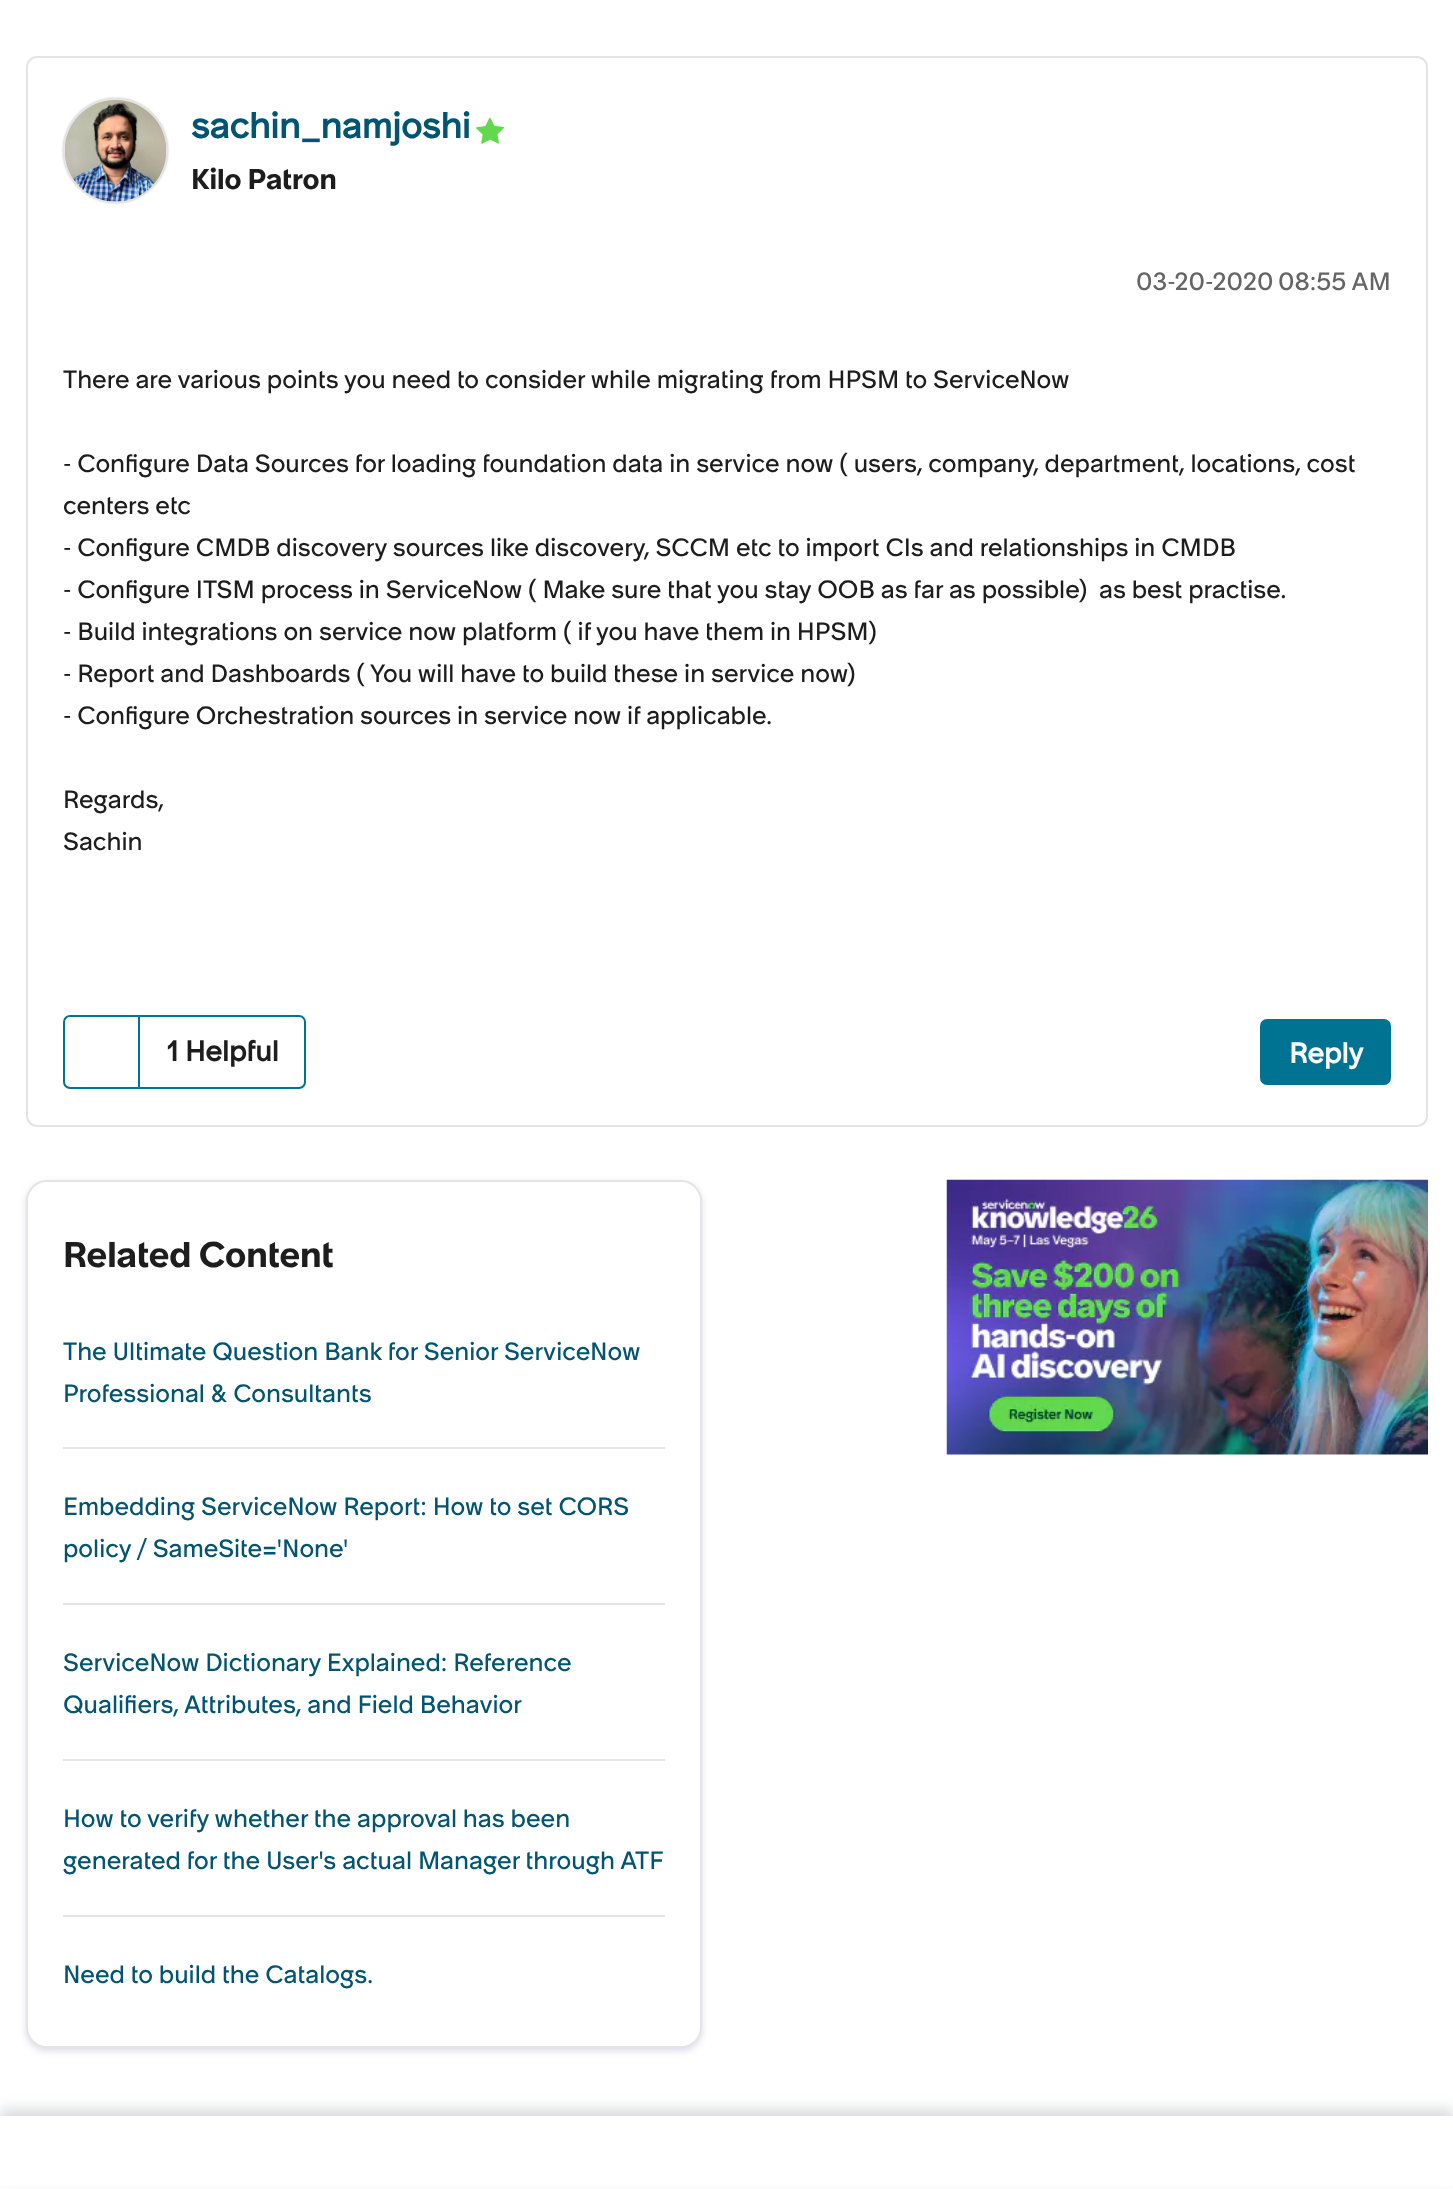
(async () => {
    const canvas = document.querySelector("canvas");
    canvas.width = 1453;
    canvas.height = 2189;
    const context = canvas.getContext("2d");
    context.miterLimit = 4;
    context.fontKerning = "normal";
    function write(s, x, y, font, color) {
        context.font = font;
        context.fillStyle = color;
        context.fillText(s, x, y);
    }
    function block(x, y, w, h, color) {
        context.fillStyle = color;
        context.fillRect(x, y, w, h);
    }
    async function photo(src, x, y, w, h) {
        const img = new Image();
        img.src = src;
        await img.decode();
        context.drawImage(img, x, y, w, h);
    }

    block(0, 0, 1453, 2189, "rgb(255, 255, 255)");
    context.beginPath();
    context.roundRect(27, 57, 1400, 1069, 10);
    context.strokeStyle = "rgb(228, 228, 228)";
    context.lineWidth = 2;
    context.stroke();
    context.fillStyle = "rgb(196, 196, 196)";
    context.filter = "blur(1px)";
    context.beginPath();
    context.roundRect(63, 98, 105, 105, 52.5);
    context.fill();
    context.filter = "none";
    context.beginPath();
    context.arc(115.5, 150.5, 51.5, 0, Math.PI * 2);
    context.stroke();
    await photo("media/1.png", 65, 100, 101, 102);
    write("sachin_namjoshi", 191, 138, "bold 35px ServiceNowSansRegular", "rgb(2, 84, 112)");
    await photo("media/2.png", 476, 117, 28, 27);
    write("Kilo Patron", 191, 189, "500 28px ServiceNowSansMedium", "rgb(29, 29, 29)");
    write("03-20-2020", 1136, 290, "24.5px ServiceNowSansRegular", "rgb(101, 101, 101)");
    write("08:55 AM", 1278, 290, "24.5px ServiceNowSansRegular", "rgb(101, 101, 101)");
    write("There are various points you need to consider while migrating from HPSM to ServiceNow", 63, 388, "24.5px ServiceNowSansRegular", "rgb(29, 29, 29)");
    write("- Configure Data Sources for loading foundation data in service now ( users, company, department, locations, cost", 63, 472, "24.5px ServiceNowSansRegular", "rgb(29, 29, 29)");
    write("centers etc", 63, 514, "24.5px ServiceNowSansRegular", "rgb(29, 29, 29)");
    write("- Configure CMDB discovery sources like discovery, SCCM etc to import CIs and relationships in CMDB", 63, 556, "24.5px ServiceNowSansRegular", "rgb(29, 29, 29)");
    write("- Configure ITSM process in ServiceNow ( Make sure that you stay OOB as far as possible)  as best practise.", 63, 598, "24.5px ServiceNowSansRegular", "rgb(29, 29, 29)");
    write("- Build integrations on service now platform ( if you have them in HPSM)", 63, 640, "24.5px ServiceNowSansRegular", "rgb(29, 29, 29)");
    write("- Report and Dashboards ( You will have to build these in service now)", 63, 682, "24.5px ServiceNowSansRegular", "rgb(29, 29, 29)");
    write("- Configure Orchestration sources in service now if applicable.", 63, 724, "24.5px ServiceNowSansRegular", "rgb(29, 29, 29)");
    write("Regards,", 63, 808, "24.5px ServiceNowSansRegular", "rgb(29, 29, 29)");
    write("Sachin", 63, 850, "24.5px ServiceNowSansRegular", "rgb(29, 29, 29)");
    context.beginPath();
    context.roundRect(64, 1016, 241, 72, 6);
    context.strokeStyle = "rgb(0, 115, 147)";
    context.stroke();
    block(138, 1017, 2, 70, "rgb(0, 115, 147)");
    write("1 Helpful", 167, 1061, "bold 28px ServiceNowSansRegular", "rgb(29, 29, 29)");
    context.fillStyle = "rgb(0, 115, 147)";
    context.beginPath();
    context.roundRect(1261, 1020, 129, 64, 6);
    context.fill();
    context.stroke();
    write("Reply", 1289, 1063, "bold 28px ServiceNowSansRegular", "rgb(255, 255, 255)");
    context.fillStyle = "rgba(113, 113, 161, 0.25)";
    context.filter = "blur(3.5px)";
    context.beginPath();
    context.roundRect(26, 1183, 676, 868, 21);
    context.fill();
    context.filter = "none";
    context.fillStyle = "rgb(255, 255, 255)";
    context.beginPath();
    context.roundRect(27, 1181, 674, 866, 20);
    context.fill();
    context.strokeStyle = "rgb(228, 228, 228)";
    context.stroke();
    write("Related Content", 63, 1267, "500 35px ServiceNowSansMedium", "rgb(29, 29, 29)");
    block(63, 1447, 602, 2, "rgb(228, 228, 228)");
    write("The Ultimate Question Bank for Senior ServiceNow", 63, 1360, "24.5px ServiceNowSansRegular", "rgb(2, 84, 112)");
    write("Professional & Consultants", 63, 1402, "24.5px ServiceNowSansRegular", "rgb(2, 84, 112)");
    block(63, 1603, 602, 2, "rgb(228, 228, 228)");
    write("Embedding ServiceNow Report: How to set CORS", 63, 1515, "24.5px ServiceNowSansRegular", "rgb(2, 84, 112)");
    write("policy / SameSite='None'", 63, 1557, "24.5px ServiceNowSansRegular", "rgb(2, 84, 112)");
    block(63, 1759, 602, 2, "rgb(228, 228, 228)");
    write("ServiceNow Dictionary Explained: Reference", 63, 1671, "24.5px ServiceNowSansRegular", "rgb(2, 84, 112)");
    write("Qualifiers, Attributes, and Field Behavior", 63, 1713, "24.5px ServiceNowSansRegular", "rgb(2, 84, 112)");
    block(63, 1915, 602, 2, "rgb(228, 228, 228)");
    write("How to verify whether the approval has been", 63, 1827, "24.5px ServiceNowSansRegular", "rgb(2, 84, 112)");
    write("generated for the User's actual Manager through ATF", 63, 1869, "24.5px ServiceNowSansRegular", "rgb(2, 84, 112)");
    write("Need to build the Catalogs.", 63, 1983, "24.5px ServiceNowSansRegular", "rgb(2, 84, 112)");
    await photo("media/3.png", 946, 1179, 482, 276);
    context.fillStyle = "rgba(95, 110, 116, 0.25)";
    context.filter = "blur(7px)";
    context.beginPath();
    context.rect(0, 2109, 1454, 70);
    context.fill();
    context.filter = "none";
    block(0, 2116, 1453, 70, "rgb(255, 255, 255)");
})();
